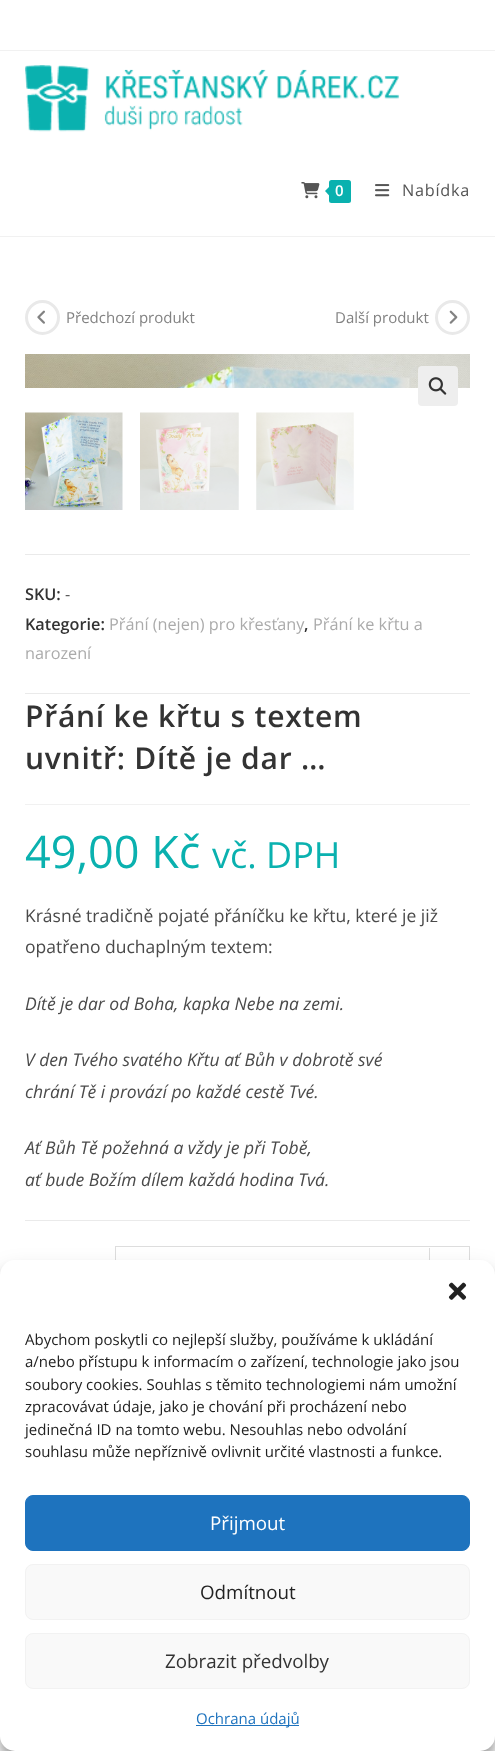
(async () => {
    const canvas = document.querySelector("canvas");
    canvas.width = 495;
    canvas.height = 1751;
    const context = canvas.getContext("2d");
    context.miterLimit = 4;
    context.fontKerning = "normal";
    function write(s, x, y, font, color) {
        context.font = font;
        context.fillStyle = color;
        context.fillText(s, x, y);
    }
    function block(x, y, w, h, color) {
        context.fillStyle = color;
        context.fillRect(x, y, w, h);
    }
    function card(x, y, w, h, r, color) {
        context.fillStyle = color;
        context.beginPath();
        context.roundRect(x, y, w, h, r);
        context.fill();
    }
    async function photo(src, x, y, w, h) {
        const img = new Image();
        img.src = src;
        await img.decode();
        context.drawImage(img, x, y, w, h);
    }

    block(0, 0, 495, 1751, "rgb(255, 255, 255)");
    block(0, 50, 495, 1, "rgb(241, 241, 241)");
    block(0, 236, 495, 1, "rgb(241, 241, 241)");
    await photo("media/1.png", 25, 65, 375, 67);
    await photo("media/2.png", 301, 182, 19, 17);
    card(329, 180, 22, 23, 2.5, "rgb(10, 177, 175)");
    context.beginPath();
    context.moveTo(331, 185);
    context.lineTo(331, 197.5);
    context.lineTo(325, 191);
    context.closePath();
    context.fill();
    context.letterSpacing = "0.75px";
    write("0", 335, 196, "600 15px Open Sans", "rgb(255, 255, 255)");
    await photo("media/3.png", 375, 184, 15, 13);
    write("Nabídka", 402, 196, "16.25px Open Sans", "rgb(85, 85, 85)");
    context.beginPath();
    context.arc(42.5, 317.5, 16, 0, Math.PI * 2);
    context.strokeStyle = "rgb(233, 233, 233)";
    context.lineWidth = 3;
    context.stroke();
    await photo("media/4.png", 37, 310, 8, 14);
    context.letterSpacing = "0px";
    write("Předchozí produkt", 66, 323, "15px Open Sans", "rgb(130, 130, 130)");
    write("Další produkt", 335, 323, "15px Open Sans", "rgb(130, 130, 130)");
    context.beginPath();
    context.arc(452.5, 317.5, 16, 0, Math.PI * 2);
    context.stroke();
    await photo("media/5.png", 449, 310, 9, 14);
    await photo("media/6.png", 25, 354, 445, 34);
    card(418, 366, 40, 40, 4, "rgb(238, 238, 238)");
    await photo("media/7.png", 428, 377, 19, 18);
    await photo("media/8.png", 25, 412, 98, 98);
    await photo("media/9.png", 140, 412, 99, 98);
    await photo("media/10.png", 256, 412, 98, 98);
    block(25, 554, 445, 1, "rgb(234, 234, 234)");
    block(25, 693, 445, 1, "rgb(234, 234, 234)");
    write("SKU:", 25, 600, "600 16.25px Open Sans", "rgb(51, 51, 51)");
    write("-", 65, 600, "16.25px Open Sans", "rgb(85, 85, 85)");
    write("Kategorie:", 25, 630, "600 16.25px Open Sans", "rgb(51, 51, 51)");
    write("Přání (nejen) pro křesťany", 109, 630, "16.25px Open Sans", "rgb(171, 171, 171)");
    write(",", 304, 630, "600 16.25px Open Sans", "rgb(51, 51, 51)");
    write("Přání ke křtu a", 313, 630, "16.25px Open Sans", "rgb(171, 171, 171)");
    write("narození", 25, 659, "16.25px Open Sans", "rgb(171, 171, 171)");
    block(25, 804, 445, 1, "rgb(241, 241, 241)");
    context.letterSpacing = "0.75px";
    write("Přání ke křtu s textem", 25, 727, "600 30px Open Sans", "rgb(51, 51, 51)");
    write("uvnitř: Dítě je dar …", 25, 769, "600 30px Open Sans", "rgb(51, 51, 51)");
    context.letterSpacing = "0px";
    write("49,00 Kč", 25, 868, "45px Open Sans", "rgb(10, 177, 175)");
    write("vč. DPH", 212, 868, "36px Open Sans", "rgb(10, 177, 175)");
    write("Krásné tradičně pojaté přáníčku ke křtu, které je již", 25, 922, "17.5px Open Sans", "rgb(74, 74, 74)");
    write("opatřeno duchaplným textem:", 25, 953, "17.5px Open Sans", "rgb(74, 74, 74)");
    write("Dítě je dar od Boha, kapka Nebe na zemi.", 25, 1010, "italic 17.5px Open Sans", "rgb(74, 74, 74)");
    write("V den Tvého svatého Křtu ať Bůh v dobrotě své", 25, 1066, "italic 17.5px Open Sans", "rgb(74, 74, 74)");
    write("chrání Tě i provází po každé cestě Tvé.", 25, 1098, "italic 17.5px Open Sans", "rgb(74, 74, 74)");
    write("Ať Bůh Tě požehná a vždy je při Tobě,", 25, 1154, "italic 17.5px Open Sans", "rgb(74, 74, 74)");
    write("ať bude Božím dílem každá hodina Tvá.", 25, 1186, "italic 17.5px Open Sans", "rgb(74, 74, 74)");
    block(25, 1220, 445, 1, "rgb(234, 234, 234)");
    context.strokeStyle = "rgb(221, 221, 221)";
    context.lineWidth = 1;
    context.strokeRect(115.5, 1246.5, 354, 42);
    block(429, 1248, 1, 12, "rgb(221, 221, 221)");
    context.fillStyle = "rgba(0, 0, 0, 0.23)";
    context.filter = "blur(4px)";
    context.beginPath();
    context.roundRect(0, 1268, 495, 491, 15);
    context.fill();
    context.filter = "none";
    context.fillStyle = "rgba(0, 0, 0, 0.19)";
    context.filter = "blur(12.5px)";
    context.beginPath();
    context.roundRect(0, 1273, 495, 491, 15);
    context.fill();
    context.filter = "none";
    card(0, 1260, 495, 491, 15, "rgb(255, 255, 255)");
    await photo("media/11.png", 448, 1282, 19, 18);
    write("Abychom poskytli co nejlepší služby, používáme k ukládání", 25, 1345, "15px Open Sans", "rgb(34, 34, 34)");
    write("a/nebo přístupu k informacím o zařízení, technologie jako jsou", 25, 1367, "15px Open Sans", "rgb(34, 34, 34)");
    write("soubory cookies. Souhlas s těmito technologiemi nám umožní", 25, 1390, "15px Open Sans", "rgb(34, 34, 34)");
    write("zpracovávat údaje, jako je chování při procházení nebo", 25, 1412, "15px Open Sans", "rgb(34, 34, 34)");
    write("jedinečná ID na tomto webu. Nesouhlas nebo odvolání", 25, 1435, "15px Open Sans", "rgb(34, 34, 34)");
    write("souhlasu může nepříznivě ovlivnit určité vlastnosti a funkce.", 25, 1457, "15px Open Sans", "rgb(34, 34, 34)");
    context.fillStyle = "rgb(30, 115, 190)";
    context.beginPath();
    context.roundRect(25.5, 1495.5, 444, 55, 7.5);
    context.fill();
    context.strokeStyle = "rgb(30, 115, 190)";
    context.stroke();
    write("Přijmout", 210, 1530, "18.75px Open Sans", "rgb(255, 255, 255)");
    context.fillStyle = "rgb(249, 249, 249)";
    context.beginPath();
    context.roundRect(25.5, 1564.5, 444, 55, 7.5);
    context.fill();
    context.strokeStyle = "rgb(242, 242, 242)";
    context.stroke();
    write("Odmítnout", 200, 1599, "18.75px Open Sans", "rgb(34, 34, 34)");
    context.fillStyle = "rgb(249, 249, 249)";
    context.beginPath();
    context.roundRect(25.5, 1633.5, 444, 55, 7.5);
    context.fill();
    context.stroke();
    write("Zobrazit předvolby", 165, 1668, "18.75px Open Sans", "rgb(51, 51, 51)");
    block(196, 1725, 103, 1, "rgb(30, 115, 190)");
    write("Ochrana údajů", 196, 1724, "15px Open Sans", "rgb(30, 115, 190)");
})();
